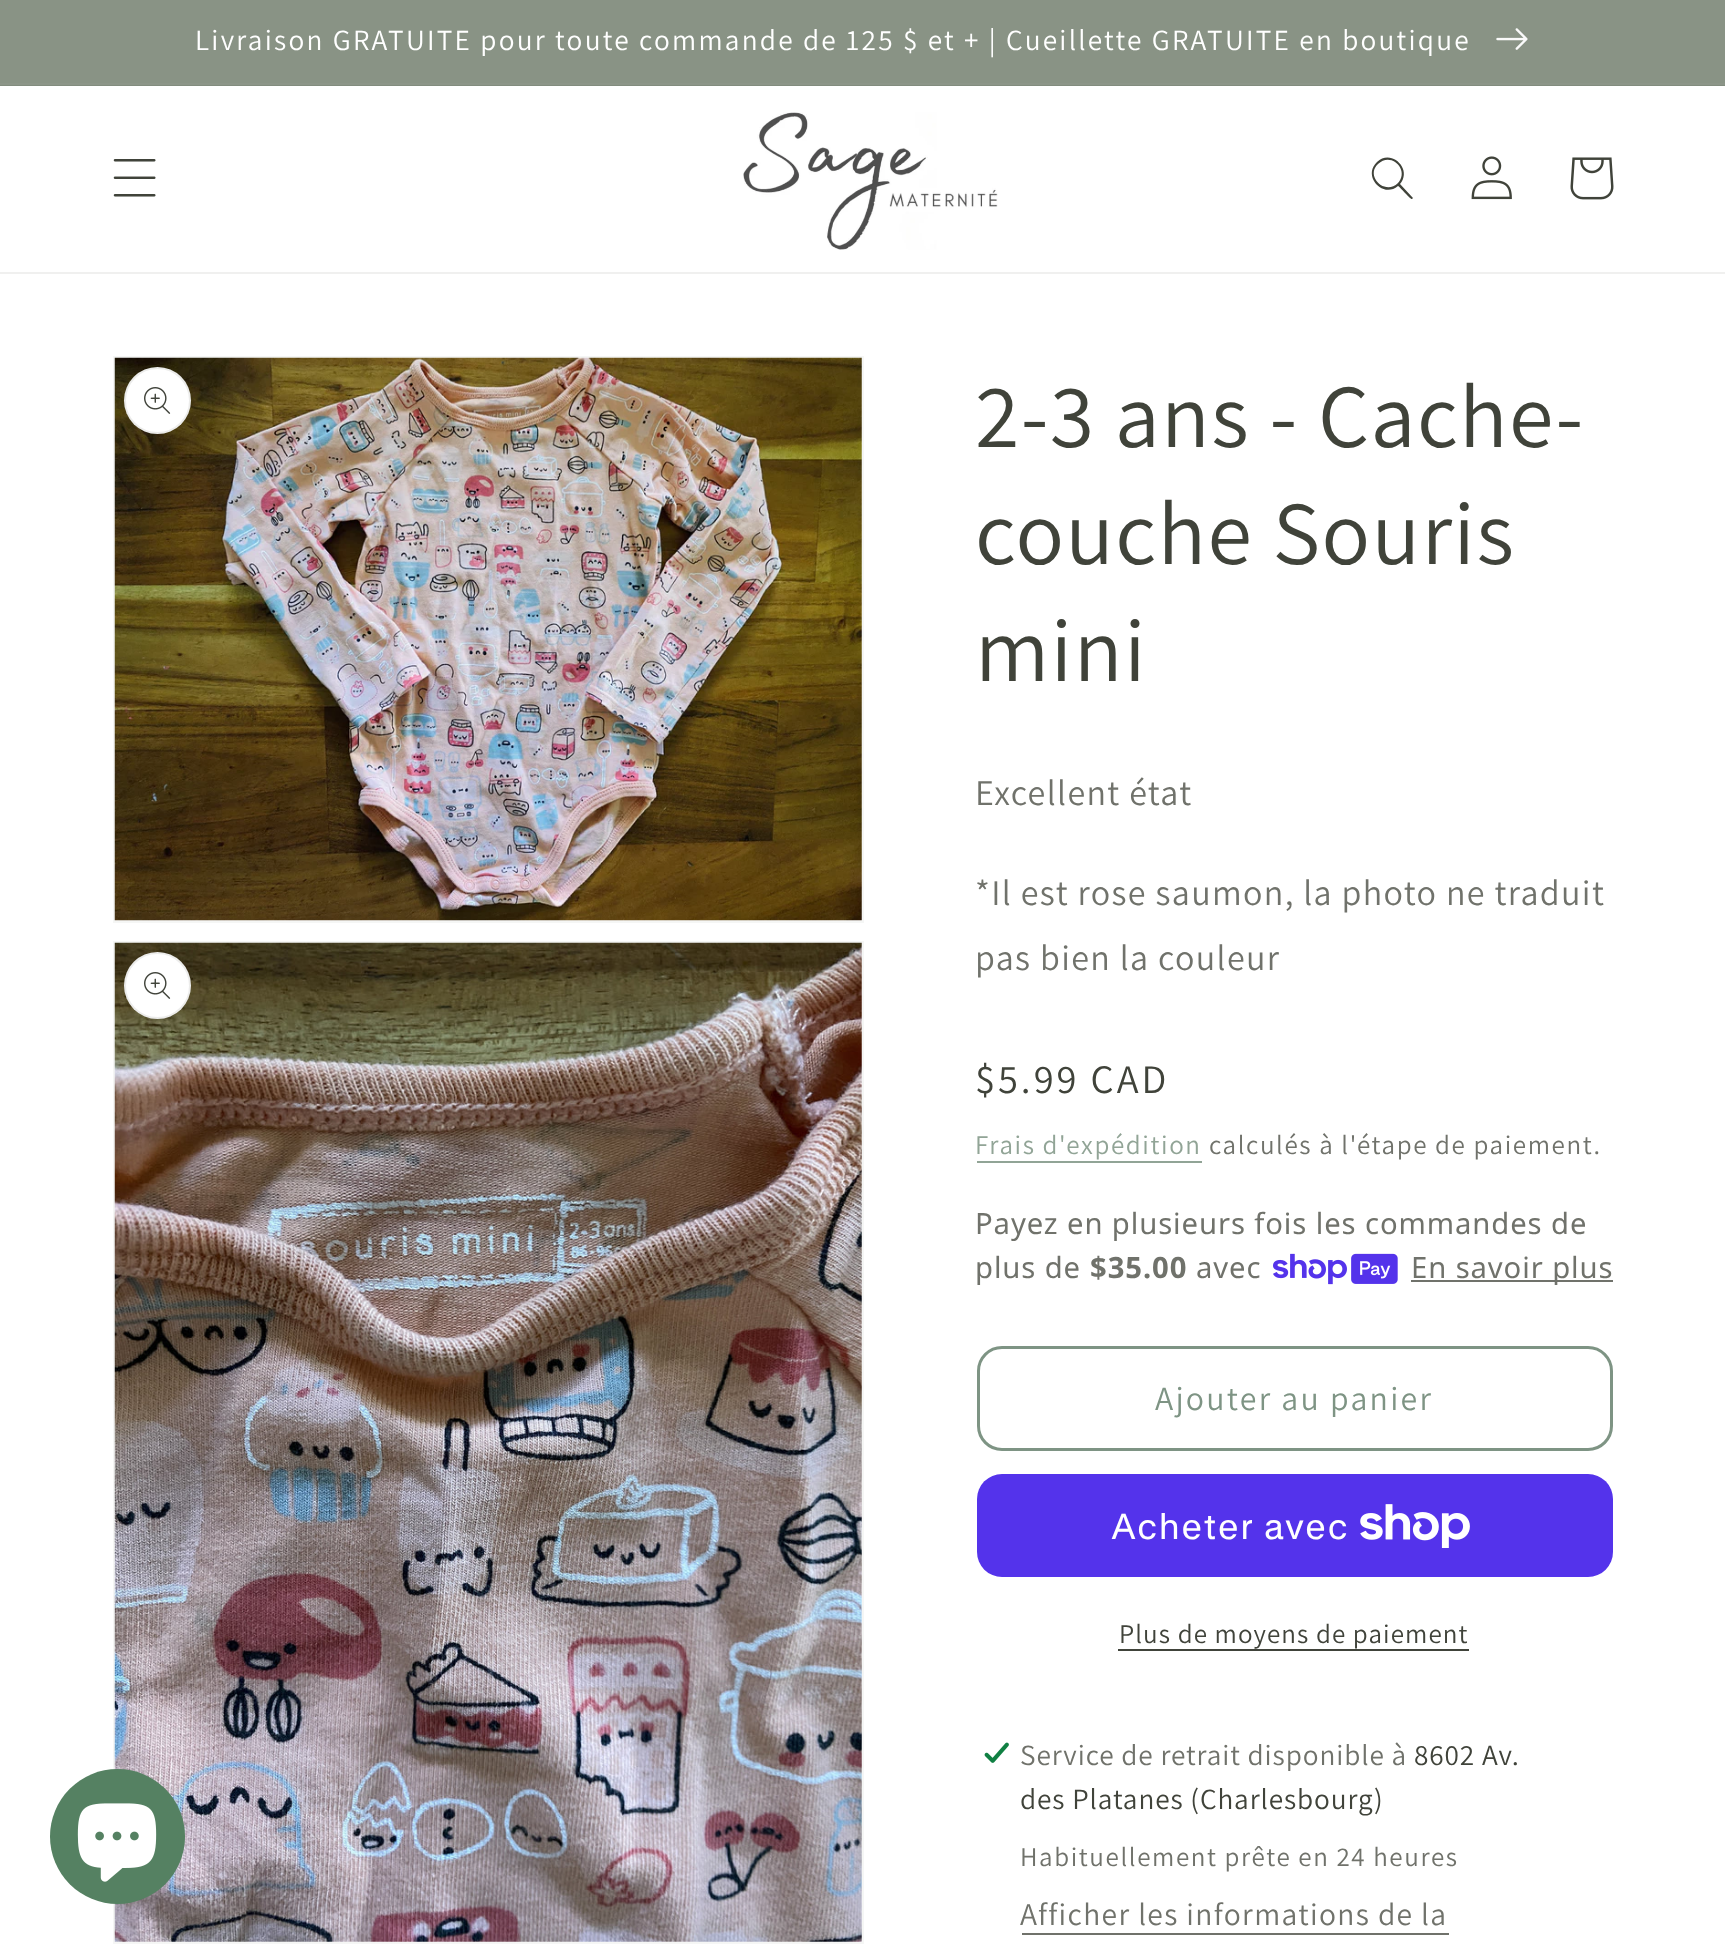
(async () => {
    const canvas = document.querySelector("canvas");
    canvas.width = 1725;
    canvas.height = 1950;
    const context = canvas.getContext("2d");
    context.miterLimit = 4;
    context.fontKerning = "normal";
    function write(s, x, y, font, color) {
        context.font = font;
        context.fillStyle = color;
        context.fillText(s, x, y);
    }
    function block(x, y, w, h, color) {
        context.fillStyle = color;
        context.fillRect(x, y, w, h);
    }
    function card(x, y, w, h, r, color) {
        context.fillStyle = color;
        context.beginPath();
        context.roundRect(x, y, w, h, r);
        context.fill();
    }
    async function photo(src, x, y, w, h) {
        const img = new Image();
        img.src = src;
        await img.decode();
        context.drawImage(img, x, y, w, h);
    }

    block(0, 0, 1725, 1950, "rgb(255, 255, 255)");
    block(0, 85, 1725, 1, "rgb(130, 140, 126)");
    block(0, 83, 1725, 2, "rgb(140, 149, 136)");
    block(0, 0, 1725, 83, "rgb(137, 147, 133)");
    context.letterSpacing = "2.25px";
    write("Livraison GRATUITE pour toute commande de 125 $ et + | Cueillette GRATUITE en boutique", 195, 50, "29.25px Assistant", "rgb(255, 255, 255)");
    await photo("media/1.png", 1496, 28, 32, 22);
    block(0, 272, 1725, 2, "rgb(240, 240, 239)");
    await photo("media/2.png", 113, 159, 43, 38);
    await photo("media/3.png", 743, 112, 255, 138);
    context.fillStyle = "rgb(64, 67, 58)";
    context.beginPath();
    context.moveTo(1398, 183);
    context.bezierCurveTo(1385, 196, 1365, 176, 1378, 164);
    context.bezierCurveTo(1391, 151, 1410, 170, 1398, 183);
    context.closePath();
    context.moveTo(1398, 186);
    context.bezierCurveTo(1383, 199, 1362, 176, 1377, 162);
    context.bezierCurveTo(1391, 148, 1413, 169, 1400, 184);
    context.lineTo(1413, 198);
    context.lineTo(1412, 199);
    context.bezierCurveTo(1411, 200, 1400, 187, 1398, 186);
    context.closePath();
    context.fill("evenodd");
    await photo("media/4.png", 1471, 156, 41, 44);
    await photo("media/5.png", 1570, 157, 44, 43);
    context.strokeStyle = "rgb(245, 246, 245)";
    context.lineWidth = 2;
    context.strokeRect(114, 942, 749, 1001);
    await photo("media/9.png", 114, 942, 748, 1000);
    context.fillStyle = "rgb(85, 129, 98)";
    context.beginPath();
    context.arc(117.5, 1836.5, 67.5, 0, Math.PI * 2);
    context.fill();
    await photo("media/6.png", 77, 1803, 80, 79);
    context.strokeRect(114, 357, 749, 565);
    await photo("media/7.png", 114, 357, 748, 564);
    context.fillStyle = "rgb(255, 255, 255)";
    context.beginPath();
    context.arc(157.5, 400.5, 33.5, 0, Math.PI * 2);
    context.fill();
    context.beginPath();
    context.arc(157.5, 400.5, 32.5, 0, Math.PI * 2);
    context.strokeStyle = "rgba(64, 67, 58, 0.1)";
    context.stroke();
    await photo("media/8.png", 144, 387, 27, 27);
    context.beginPath();
    context.arc(157.5, 985.5, 33.5, 0, Math.PI * 2);
    context.fill();
    context.beginPath();
    context.arc(157.5, 985.5, 32.5, 0, Math.PI * 2);
    context.stroke();
    await photo("media/8.png", 144, 972, 27, 27);
    context.letterSpacing = "1.35px";
    write("2-3 ans - Cache-", 975, 447, "90px Assistant", "rgb(64, 67, 58)");
    write("couche Souris", 975, 564, "90px Assistant", "rgb(64, 67, 58)");
    write("mini", 975, 681, "90px Assistant", "rgb(64, 67, 58)");
    write("Excellent état", 975, 805, "36px Assistant", "rgb(112, 114, 107)");
    write("*Il est rose saumon, la photo ne traduit", 975, 905, "36px Assistant", "rgb(112, 114, 107)");
    write("pas bien la couleur", 975, 970, "36px Assistant", "rgb(112, 114, 107)");
    context.letterSpacing = "3px";
    write("$5.99 CAD", 975, 1093, "40.5px Assistant", "rgb(64, 67, 58)");
    context.letterSpacing = "1.6px";
    write("Frais d'expédition", 975, 1154, "27px Assistant", "rgb(145, 164, 150)");
    block(977, 1161, 225, 2, "rgb(145, 164, 150)");
    write("calculés à l'étape de paiement.", 1209, 1154, "27px Assistant", "rgb(112, 114, 107)");
    context.letterSpacing = "0.9px";
    write("Payez en plusieurs fois les commandes de", 975, 1234, "29.25px Noto Sans", "rgb(112, 114, 107)");
    write("plus de", 975, 1278, "29.25px Noto Sans", "rgb(112, 114, 107)");
    write("$35.00", 1090, 1278, "bold 29.25px Noto Sans", "rgb(112, 114, 107)");
    write("avec", 1196, 1278, "29.25px Noto Sans", "rgb(112, 114, 107)");
    await photo("media/10.png", 1273, 1253, 125, 32);
    block(1411, 1280, 202, 2, "rgb(112, 114, 107)");
    write("En savoir plus", 1411, 1278, "29.25px Noto Sans", "rgb(112, 114, 107)");
    context.beginPath();
    context.roundRect(978.5, 1347.5, 633, 102, 23.5);
    context.strokeStyle = "rgb(126, 148, 132)";
    context.lineWidth = 3;
    context.stroke();
    context.letterSpacing = "2.25px";
    write("Ajouter au panier", 1155, 1410, "33.75px Assistant", "rgb(126, 148, 132)");
    card(977, 1474, 636, 103, 25, "rgb(84, 51, 235)");
    context.letterSpacing = "1.35px";
    write("Acheter avec", 1111, 1539, "36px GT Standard", "rgb(255, 255, 255)");
    await photo("media/11.png", 1360, 1504, 110, 44);
    context.letterSpacing = "1.1px";
    write("Plus de moyens de paiement", 1119, 1643, "27px Assistant", "rgb(64, 67, 58)");
    block(1118, 1649, 351, 2, "rgb(64, 67, 58)");
    await photo("media/12.png", 984, 1742, 25, 21);
    context.letterSpacing = "0.9px";
    write("Service de retrait disponible à", 1020, 1765, "29.25px Assistant", "rgb(112, 114, 107)");
    write("8602 Av.", 1414, 1765, "29.25px Assistant", "rgb(64, 67, 58)");
    write("des Platanes (Charlesbourg)", 1020, 1809, "29.25px Assistant", "rgb(64, 67, 58)");
    context.letterSpacing = "1.6px";
    write("Habituellement prête en 24 heures", 1020, 1866, "27px Assistant", "rgb(112, 114, 107)");
    context.letterSpacing = "1.35px";
    write("Afficher les informations de la", 1020, 1925, "31.5px Assistant", "rgb(112, 114, 107)");
    block(1022, 1933, 427, 2, "rgb(112, 114, 107)");
})();
